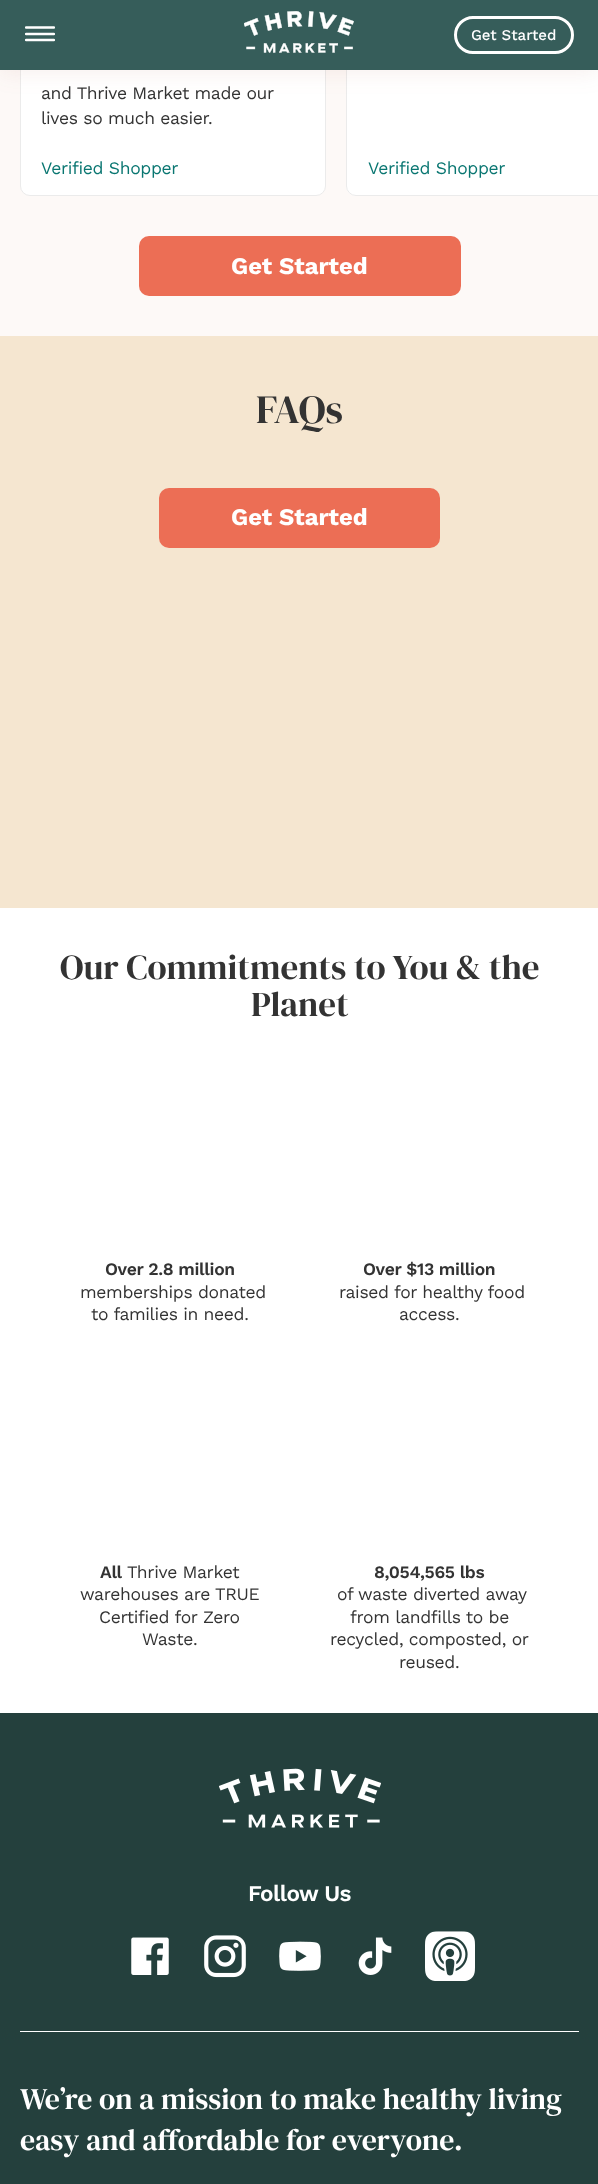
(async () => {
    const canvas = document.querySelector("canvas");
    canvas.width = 598;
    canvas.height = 2184;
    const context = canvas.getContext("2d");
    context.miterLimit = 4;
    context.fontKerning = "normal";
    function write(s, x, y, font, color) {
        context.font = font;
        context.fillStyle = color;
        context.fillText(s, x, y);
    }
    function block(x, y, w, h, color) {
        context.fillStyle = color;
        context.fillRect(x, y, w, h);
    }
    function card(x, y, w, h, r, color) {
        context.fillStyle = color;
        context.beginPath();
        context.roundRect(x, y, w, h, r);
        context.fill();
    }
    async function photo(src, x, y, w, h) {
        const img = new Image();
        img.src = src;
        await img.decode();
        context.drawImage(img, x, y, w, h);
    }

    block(0, 0, 598, 2184, "rgb(255, 255, 255)");
    block(0, 70, 598, 266, "rgb(253, 249, 247)");
    context.fillStyle = "rgb(255, 255, 255)";
    context.beginPath();
    context.roundRect(20.5, -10.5, 305, 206, 9.5);
    context.fill();
    context.strokeStyle = "rgb(235, 235, 235)";
    context.stroke();
    context.beginPath();
    context.moveTo(356, -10);
    context.lineTo(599, -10);
    context.lineTo(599, 196);
    context.lineTo(356, 196);
    context.bezierCurveTo(350.5, 196, 346, 191.5, 346, 186);
    context.lineTo(346, 0);
    context.bezierCurveTo(346, -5.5, 350.5, -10, 356, -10);
    context.closePath();
    context.fill();
    context.beginPath();
    context.roundRect(346.5, -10.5, 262, 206, 9.5);
    context.stroke();
    context.fillStyle = "rgba(162, 75, 59, 0.1)";
    context.filter = "blur(12.5px)";
    context.beginPath();
    context.rect(0, 1, 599, 70);
    context.fill();
    context.filter = "none";
    block(0, 0, 598, 70, "rgb(54, 93, 90)");
    context.save();
    context.beginPath();
    context.rect(25, 20, 30, 30);
    context.clip();
    context.beginPath();
    context.moveTo(26, 27.5);
    context.lineTo(54, 27.5);
    context.moveTo(26, 34);
    context.lineTo(54, 34);
    context.moveTo(26, 40);
    context.lineTo(54, 40);
    context.strokeStyle = "rgb(255, 255, 255)";
    context.lineWidth = 2.5;
    context.lineCap = "round";
    context.stroke();
    context.restore();
    await photo("media/1.png", 244, 11, 110, 42);
    context.beginPath();
    context.roundRect(455.5, 17.5, 117, 35, 17.5);
    context.strokeStyle = "rgb(255, 255, 255)";
    context.lineWidth = 3;
    context.stroke();
    write("Get Started", 471, 40, "500 15px Work Sans", "rgb(255, 255, 255)");
    context.letterSpacing = "-0.35px";
    write("and Thrive Market made our", 41, 99, "17.5px Work Sans", "rgb(51, 51, 51)");
    write("lives so much easier.", 41, 124, "17.5px Work Sans", "rgb(51, 51, 51)");
    write("Verified Shopper", 41, 174, "17.5px Work Sans", "rgb(9, 118, 113)");
    write("Verified Shopper", 368, 174, "17.5px Work Sans", "rgb(9, 118, 113)");
    card(139, 236, 322, 60, 10, "rgb(236, 110, 85)");
    context.letterSpacing = "0px";
    write("Get Started", 231, 274, "bold 23.75px Work Sans", "rgb(255, 255, 255)");
    block(0, 336, 598, 572, "rgb(245, 230, 208)");
    write("FAQs", 256, 423, "40px DM Serif Display", "rgb(51, 51, 51)");
    card(159, 488, 281, 60, 10, "rgb(236, 110, 85)");
    write("Get Started", 231, 525, "bold 23.75px Work Sans", "rgb(255, 255, 255)");
    write("Our Commitments to You & the", 60, 979, "35px DM Serif Display", "rgb(51, 51, 51)");
    write("Planet", 251, 1016, "35px DM Serif Display", "rgb(51, 51, 51)");
    context.letterSpacing = "-0.35px";
    write("Over 2.8 million", 105, 1275, "600 17.5px Work Sans", "rgb(51, 51, 51)");
    write("memberships donated", 80, 1298, "17.5px Work Sans", "rgb(51, 51, 51)");
    write("to families in need.", 91, 1320, "17.5px Work Sans", "rgb(51, 51, 51)");
    write("Over $13 million", 363, 1275, "600 17.5px Work Sans", "rgb(51, 51, 51)");
    write("raised for healthy food", 339, 1298, "17.5px Work Sans", "rgb(51, 51, 51)");
    write("access.", 399, 1320, "17.5px Work Sans", "rgb(51, 51, 51)");
    write("All", 100, 1578, "600 17.5px Work Sans", "rgb(51, 51, 51)");
    write("Thrive Market", 127, 1578, "17.5px Work Sans", "rgb(51, 51, 51)");
    write("warehouses are TRUE", 80, 1600, "17.5px Work Sans", "rgb(51, 51, 51)");
    write("Certified for Zero", 99, 1623, "17.5px Work Sans", "rgb(51, 51, 51)");
    write("Waste.", 142, 1645, "17.5px Work Sans", "rgb(51, 51, 51)");
    write("8,054,565 lbs", 374, 1578, "600 17.5px Work Sans", "rgb(51, 51, 51)");
    write("of waste diverted away", 337, 1600, "17.5px Work Sans", "rgb(51, 51, 51)");
    write("from landfills to be", 350, 1623, "17.5px Work Sans", "rgb(51, 51, 51)");
    write("recycled, composted, or", 330, 1645, "17.5px Work Sans", "rgb(51, 51, 51)");
    write("reused.", 399, 1668, "17.5px Work Sans", "rgb(51, 51, 51)");
    block(0, 1713, 598, 471, "rgb(36, 64, 61)");
    block(20, 2031, 559, 1, "rgb(255, 255, 255)");
    await photo("media/2.png", 219, 1768, 162, 60);
    context.letterSpacing = "-0.5px";
    write("Follow Us", 248, 1901, "600 22.5px Work Sans", "rgb(255, 255, 255)");
    await photo("media/3.png", 131, 1937, 38, 38);
    await photo("media/4.png", 204, 1935, 42, 43);
    await photo("media/5.png", 279, 1941, 42, 30);
    await photo("media/6.png", 358, 1937, 34, 38);
    await photo("media/7.png", 425, 1931, 50, 50);
    context.letterSpacing = "0px";
    write("We’re on a mission to make healthy living", 20, 2109, "30px DM Serif Text", "rgb(255, 255, 255)");
    write("easy and affordable for everyone.", 20, 2150, "30px DM Serif Text", "rgb(255, 255, 255)");
})();
